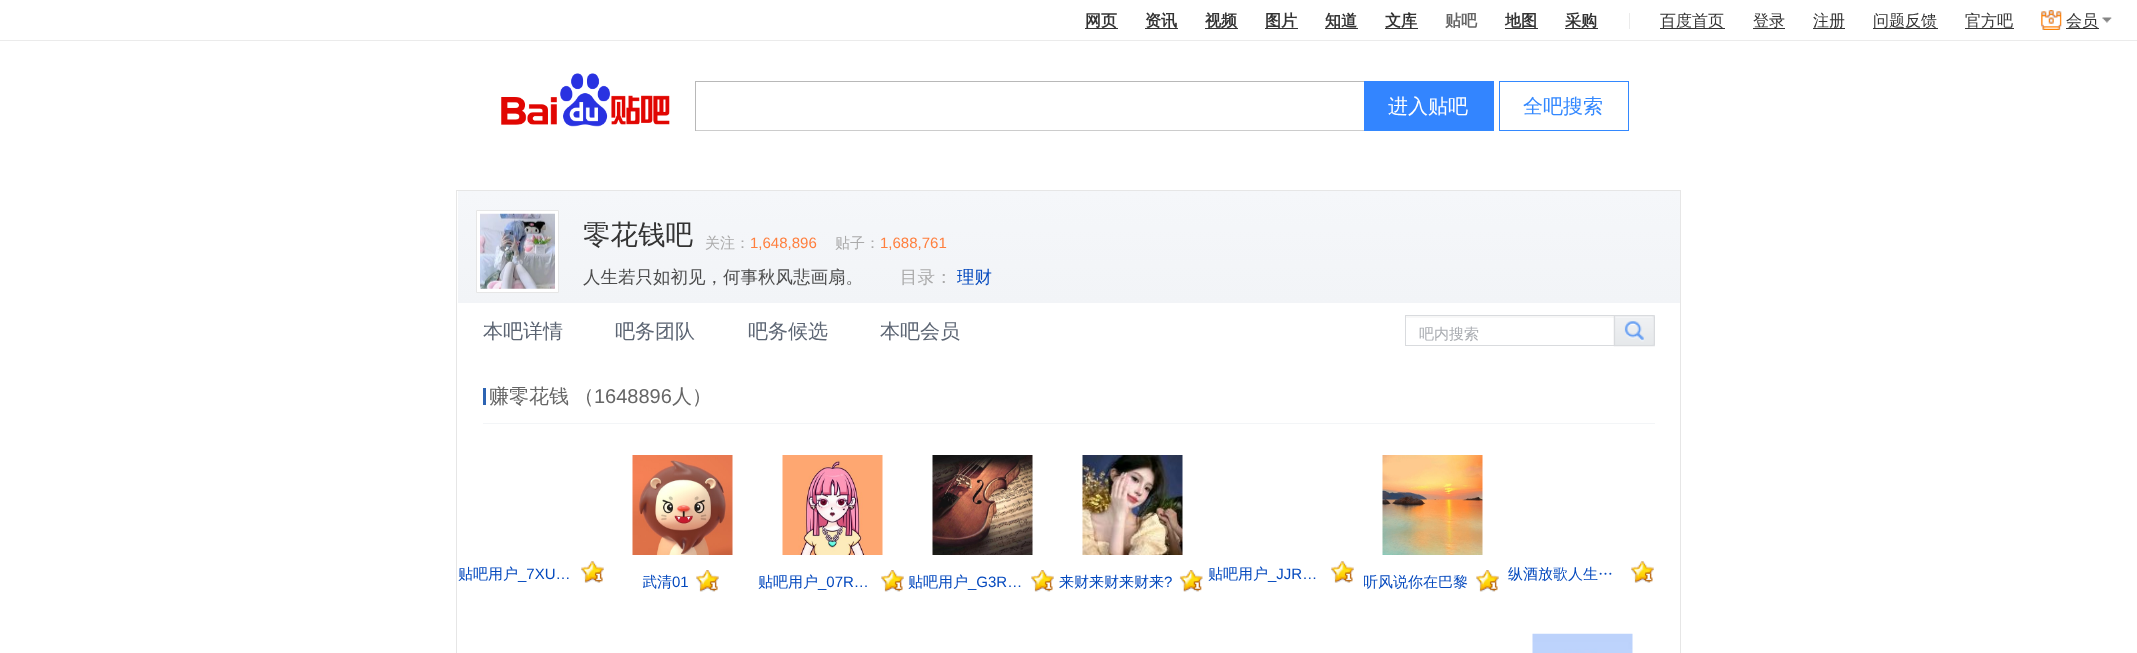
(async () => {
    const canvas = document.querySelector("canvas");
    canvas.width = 2137;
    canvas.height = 653;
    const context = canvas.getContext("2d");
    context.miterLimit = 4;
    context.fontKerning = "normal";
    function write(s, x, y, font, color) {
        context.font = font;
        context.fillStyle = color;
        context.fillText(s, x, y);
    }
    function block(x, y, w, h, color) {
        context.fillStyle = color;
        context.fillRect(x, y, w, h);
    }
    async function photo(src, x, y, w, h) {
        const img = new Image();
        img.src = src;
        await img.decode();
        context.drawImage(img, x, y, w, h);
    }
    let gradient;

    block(0, 0, 2137, 653, "rgb(255, 255, 255)");
    block(0, 40, 2137, 1, "rgb(235, 235, 235)");
    block(1085, 28, 33, 1, "rgb(51, 51, 51)");
    write("网页", 1085, 26, "bold 16px WenQuanYi Zen Hei", "rgb(51, 51, 51)");
    block(1145, 28, 33, 1, "rgb(51, 51, 51)");
    write("资讯", 1145, 26, "bold 16px WenQuanYi Zen Hei", "rgb(51, 51, 51)");
    block(1205, 28, 33, 1, "rgb(51, 51, 51)");
    write("视频", 1205, 26, "bold 16px WenQuanYi Zen Hei", "rgb(51, 51, 51)");
    write("图片", 1265, 26, "bold 16px WenQuanYi Zen Hei", "rgb(51, 51, 51)");
    block(1265, 28, 33, 1, "rgb(51, 51, 51)");
    write("知道", 1325, 26, "bold 16px WenQuanYi Zen Hei", "rgb(51, 51, 51)");
    block(1325, 28, 33, 1, "rgb(51, 51, 51)");
    block(1385, 28, 33, 1, "rgb(51, 51, 51)");
    write("文库", 1385, 26, "bold 16px WenQuanYi Zen Hei", "rgb(51, 51, 51)");
    write("贴吧", 1445, 26, "bold 16px WenQuanYi Zen Hei", "rgb(102, 102, 102)");
    write("地图", 1505, 26, "bold 16px WenQuanYi Zen Hei", "rgb(51, 51, 51)");
    block(1505, 28, 33, 1, "rgb(51, 51, 51)");
    block(1565, 28, 33, 1, "rgb(51, 51, 51)");
    write("采购", 1565, 26, "bold 16px WenQuanYi Zen Hei", "rgb(51, 51, 51)");
    await photo("media/1.png", 501, 73, 169, 54);
    block(695, 81, 670, 1, "rgb(184, 184, 184)");
    block(695, 130, 670, 1, "rgb(204, 204, 204)");
    block(695, 81, 1, 50, "rgb(184, 184, 184)");
    block(1364, 81, 130, 49, "rgb(51, 133, 255)");
    block(1364, 130, 130, 1, "rgb(51, 136, 255)");
    write("进入贴吧", 1388, 113, "500 20px WenQuanYi Zen Hei", "rgb(255, 255, 255)");
    context.strokeStyle = "rgb(51, 136, 255)";
    context.strokeRect(1499.5, 81.5, 129, 49);
    write("全吧搜索", 1523, 113, "500 20px WenQuanYi Zen Hei", "rgb(51, 136, 255)");
    context.strokeStyle = "rgb(230, 230, 230)";
    context.strokeRect(456.5, 190.5, 1224, 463);
    gradient = context.createLinearGradient(1069, 191, 1069, 303);
    gradient.addColorStop(0, "rgb(245, 247, 250)");
    gradient.addColorStop(1, "rgb(242, 244, 247)");
    context.fillStyle = gradient;
    context.fillRect(458, 191, 1222, 112);
    context.fillStyle = "rgb(255, 255, 255)";
    context.beginPath();
    context.rect(476.5, 210.5, 82, 82);
    context.fill();
    context.stroke();
    await photo("media/2.png", 480, 213, 75, 76);
    write("零花钱吧", 583, 244, "500 27.5px WenQuanYi Zen Hei", "rgb(51, 51, 51)");
    write("关注：", 705, 248, "500 15px WenQuanYi Zen Hei", "rgb(170, 170, 170)");
    write("1,648,896", 750, 248, "15px Liberation Sans", "rgb(255, 127, 62)");
    write("贴子：", 835, 248, "500 15px WenQuanYi Zen Hei", "rgb(170, 170, 170)");
    write("1,688,761", 880, 248, "15px Liberation Sans", "rgb(255, 127, 62)");
    write("人生若只如初见，何事秋风悲画扇。", 583, 283, "500 17.5px WenQuanYi Zen Hei", "rgb(76, 76, 76)");
    write("目录：", 900, 283, "500 17.5px WenQuanYi Zen Hei", "rgb(170, 170, 170)");
    write("理财", 957, 283, "500 17.5px WenQuanYi Zen Hei", "rgb(4, 73, 190)");
    write("本吧详情", 483, 338, "500 20px WenQuanYi Zen Hei", "rgb(92, 101, 115)");
    write("吧务团队", 615, 338, "500 20px WenQuanYi Zen Hei", "rgb(92, 101, 115)");
    write("吧务候选", 748, 338, "500 20px WenQuanYi Zen Hei", "rgb(92, 101, 115)");
    write("本吧会员", 880, 338, "500 20px WenQuanYi Zen Hei", "rgb(92, 101, 115)");
    await photo("media/3.png", 1406, 316, 208, 2);
    block(1405, 315, 209, 1, "rgb(217, 219, 222)");
    block(1405, 345, 209, 1, "rgb(217, 219, 222)");
    block(1405, 315, 1, 31, "rgb(217, 219, 222)");
    await photo("media/4.png", 1613, 315, 42, 32);
    write("吧内搜索", 1419, 339, "500 15px WenQuanYi Zen Hei", "rgb(170, 173, 178)");
    block(483, 423, 1172, 1, "rgb(243, 245, 247)");
    block(483, 388, 3, 17, "rgb(45, 100, 179)");
    write("赚零花钱", 489, 403, "500 20px WenQuanYi Zen Hei", "rgb(102, 102, 102)");
    write("（", 574, 403, "500 20px WenQuanYi Zen Hei", "rgb(102, 102, 102)");
    write("1648896", 594, 403, "20px Liberation Sans", "rgb(102, 102, 102)");
    write("人）", 672, 403, "500 20px WenQuanYi Zen Hei", "rgb(102, 102, 102)");
    write("贴吧用户", 458, 579, "500 15px WenQuanYi Zen Hei", "rgb(4, 73, 190)");
    write("_7XU…", 518, 579, "15px Liberation Sans", "rgb(4, 73, 190)");
    await photo("media/5.png", 581, 561, 23, 22);
    await photo("media/6.png", 632, 455, 101, 100);
    context.save();
    context.beginPath();
    context.rect(643, 569, 46, 27);
    context.clip();
    write("武清", 642, 587, "500 15px WenQuanYi Zen Hei", "rgb(4, 73, 190)");
    context.restore();
    write("01", 672, 587, "15px Liberation Sans", "rgb(4, 73, 190)");
    await photo("media/7.png", 696, 570, 23, 22);
    await photo("media/8.png", 782, 455, 101, 100);
    write("贴吧用户", 758, 587, "500 15px WenQuanYi Zen Hei", "rgb(4, 73, 190)");
    write("_07R…", 818, 587, "15px Liberation Sans", "rgb(4, 73, 190)");
    await photo("media/9.png", 881, 570, 23, 22);
    await photo("media/10.png", 932, 455, 101, 100);
    write("贴吧用户", 908, 587, "500 15px WenQuanYi Zen Hei", "rgb(4, 73, 190)");
    write("_G3R…", 968, 587, "15px Liberation Sans", "rgb(4, 73, 190)");
    await photo("media/9.png", 1031, 570, 23, 22);
    await photo("media/11.png", 1082, 455, 101, 100);
    write("来财来财来财来", 1059, 587, "500 15px WenQuanYi Zen Hei", "rgb(4, 73, 190)");
    write("?", 1164, 587, "15px Liberation Sans", "rgb(4, 73, 190)");
    await photo("media/12.png", 1179, 570, 24, 22);
    write("贴吧用户", 1208, 579, "500 15px WenQuanYi Zen Hei", "rgb(4, 73, 190)");
    write("_JJR…", 1268, 579, "15px Liberation Sans", "rgb(4, 73, 190)");
    await photo("media/13.png", 1331, 561, 23, 22);
    await photo("media/14.png", 1382, 455, 101, 100);
    context.save();
    context.beginPath();
    context.rect(1364, 569, 105, 27);
    context.clip();
    write("听风说你在巴黎", 1363, 587, "500 15px WenQuanYi Zen Hei", "rgb(4, 73, 190)");
    context.restore();
    await photo("media/9.png", 1476, 570, 23, 22);
    context.save();
    context.beginPath();
    context.rect(1508, 560, 116, 28);
    context.clip();
    write("纵酒放歌人生…", 1508, 579, "500 15px WenQuanYi Zen Hei", "rgb(4, 73, 190)");
    context.restore();
    await photo("media/13.png", 1631, 561, 23, 22);
    await photo("media/15.png", 1532, 633, 101, 20);
    block(1629, 13, 1, 16, "rgb(235, 235, 235)");
    block(1660, 28, 65, 1, "rgb(51, 51, 51)");
    write("百度首页", 1660, 26, "500 16px WenQuanYi Zen Hei", "rgb(51, 51, 51)");
    block(1753, 28, 32, 1, "rgb(51, 51, 51)");
    write("登录", 1753, 26, "500 16px WenQuanYi Zen Hei", "rgb(51, 51, 51)");
    block(1813, 28, 32, 1, "rgb(51, 51, 51)");
    write("注册", 1813, 26, "500 16px WenQuanYi Zen Hei", "rgb(51, 51, 51)");
    block(1873, 28, 65, 1, "rgb(51, 51, 51)");
    write("问题反馈", 1873, 26, "500 16px WenQuanYi Zen Hei", "rgb(51, 51, 51)");
    write("官方吧", 1965, 26, "500 16px WenQuanYi Zen Hei", "rgb(51, 51, 51)");
    block(1965, 28, 49, 1, "rgb(51, 51, 51)");
    await photo("media/16.png", 2041, 10, 21, 20);
    block(2066, 28, 33, 1, "rgb(51, 51, 51)");
    write("会员", 2066, 26, "500 16px WenQuanYi Zen Hei", "rgb(51, 51, 51)");
    await photo("media/17.png", 2102, 17, 10, 6);
})();
